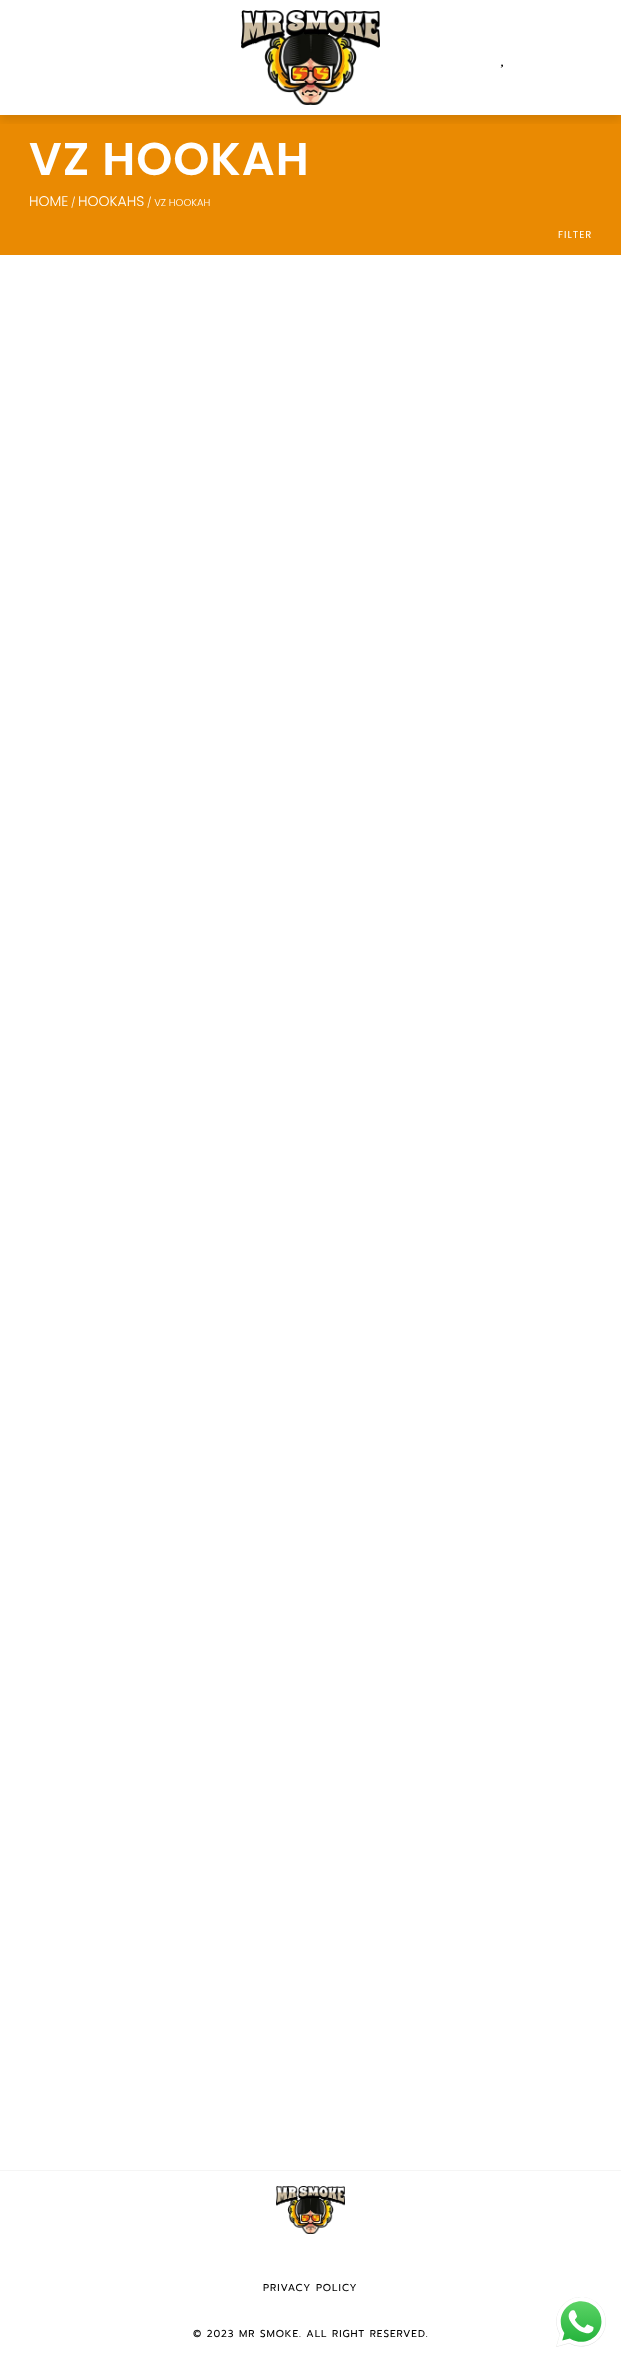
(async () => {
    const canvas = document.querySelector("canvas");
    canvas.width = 621;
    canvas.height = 2362;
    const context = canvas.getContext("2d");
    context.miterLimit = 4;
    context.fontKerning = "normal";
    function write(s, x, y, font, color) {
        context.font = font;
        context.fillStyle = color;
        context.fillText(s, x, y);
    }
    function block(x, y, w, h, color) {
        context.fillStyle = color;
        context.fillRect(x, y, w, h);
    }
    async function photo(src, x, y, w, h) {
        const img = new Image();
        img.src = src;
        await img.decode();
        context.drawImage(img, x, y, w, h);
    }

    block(0, 0, 621, 2362, "rgb(255, 255, 255)");
    block(0, 115, 621, 140, "rgb(234, 138, 2)");
    context.save();
    context.beginPath();
    context.rect(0, 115, 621, 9);
    context.clip();
    context.fillStyle = "rgba(0, 0, 0, 0.1)";
    context.filter = "blur(5px)";
    context.beginPath();
    context.rect(0, 5, 621, 115);
    context.fill();
    context.filter = "none";
    context.restore();
    await photo("media/1.png", 241, 10, 139, 95);
    await photo("media/2.png", 500, 64, 3, 4);
    context.letterSpacing = "1px";
    write("VZ HOOKAH", 29, 175, "600 46px Poppins", "rgb(255, 255, 255)");
    context.letterSpacing = "0px";
    write("HOME", 29, 206, "300 14px Poppins", "rgb(255, 255, 255)");
    write("/", 71, 206, "300 10px Poppins", "rgb(255, 255, 255)");
    write("HOOKAHS", 78, 206, "300 14px Poppins", "rgb(255, 255, 255)");
    write("/ VZ HOOKAH", 147, 206, "300 10px Poppins", "rgb(255, 255, 255)");
    context.letterSpacing = "1px";
    write("FILTER", 558, 238, "10px Poppins", "rgb(255, 255, 255)");
    block(0, 2170, 621, 1, "rgb(245, 245, 245)");
    await photo("media/3.png", 276, 2186, 69, 48);
    write("PRIVACY POLICY", 263, 2291, "10px Prompt", "rgb(0, 0, 0)");
    context.letterSpacing = "0.9px";
    write("© 2023 MR SMOKE. ALL RIGHT RESERVED.", 193, 2337, "10px Prompt", "rgb(0, 0, 0)");
    await photo("media/4.png", 556, 2297, 50, 50);
})();
